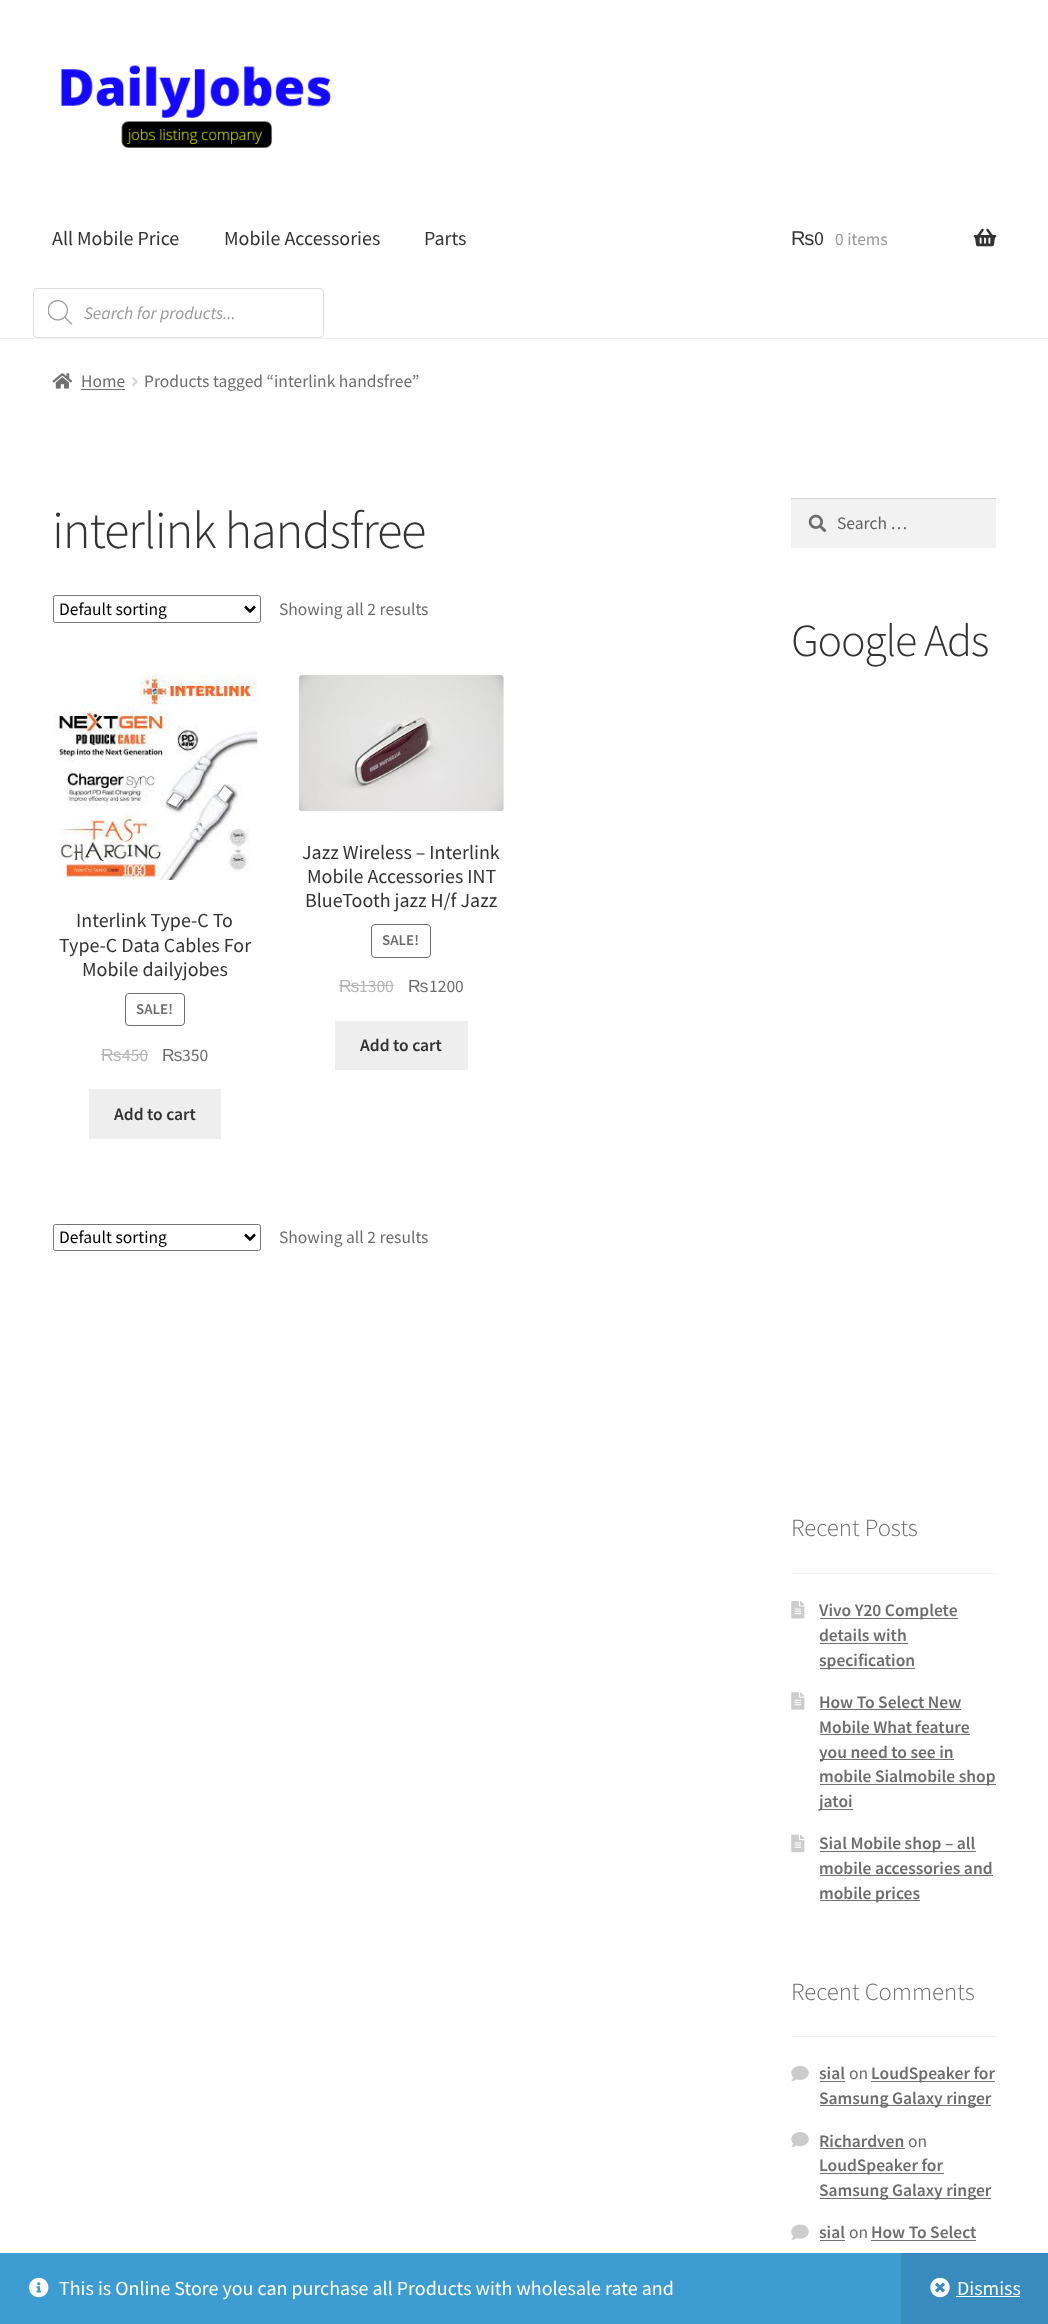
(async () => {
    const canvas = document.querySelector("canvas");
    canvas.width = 1048;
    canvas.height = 2324;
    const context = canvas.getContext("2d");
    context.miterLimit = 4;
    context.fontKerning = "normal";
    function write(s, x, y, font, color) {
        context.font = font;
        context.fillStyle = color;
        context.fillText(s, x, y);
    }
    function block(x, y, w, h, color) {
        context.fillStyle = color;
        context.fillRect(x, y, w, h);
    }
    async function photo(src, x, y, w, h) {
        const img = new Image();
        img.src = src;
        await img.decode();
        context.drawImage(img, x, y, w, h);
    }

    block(0, 0, 1048, 2324, "rgb(255, 255, 255)");
    block(0, 338, 1048, 1, "rgb(240, 240, 240)");
    await photo("media/1.png", 60, 65, 271, 83);
    write("All Mobile Price", 52, 245, "20px Source Sans Pro", "rgb(51, 51, 51)");
    write("Mobile Accessories", 224, 245, "20px Source Sans Pro", "rgb(51, 51, 51)");
    write("Parts", 424, 245, "20px Source Sans Pro", "rgb(51, 51, 51)");
    context.beginPath();
    context.roundRect(33.5, 288.5, 290, 49, 3.5);
    context.strokeStyle = "rgb(221, 221, 221)";
    context.stroke();
    await photo("media/2.png", 48, 300, 25, 25);
    write("Search for products...", 84, 319, "italic 17.5px Source Sans Pro", "rgb(153, 153, 153)");
    write("₨", 791, 245, "20px Liberation Sans", "rgb(51, 51, 51)");
    write("0", 814, 245, "20px Source Sans Pro", "rgb(51, 51, 51)");
    write("0 items", 835, 245, "17.5px Source Sans Pro", "rgb(153, 153, 153)");
    await photo("media/3.png", 973, 228, 24, 19);
    await photo("media/4.png", 52, 373, 21, 16);
    write("Home", 81, 387, "17.5px Source Sans Pro", "rgb(109, 109, 109)");
    block(81, 389, 44, 1, "rgb(114, 114, 114)");
    await photo("media/5.png", 132, 377, 6, 10);
    write("Products tagged “interlink handsfree”", 144, 387, "17.5px Source Sans Pro", "rgb(109, 109, 109)");
    context.letterSpacing = "-1.25px";
    write("interlink handsfree", 52, 548, "300 52.5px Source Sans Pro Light", "rgb(51, 51, 51)");
    context.beginPath();
    context.roundRect(53.5, 595.5, 207, 27, 2);
    context.strokeStyle = "rgb(118, 118, 118)";
    context.stroke();
    context.beginPath();
    context.moveTo(245, 606.5);
    context.lineTo(250, 611.5);
    context.lineTo(255, 606.5);
    context.strokeStyle = "rgb(0, 0, 0)";
    context.lineWidth = 2.5;
    context.stroke();
    context.letterSpacing = "0px";
    write("Default sorting", 59, 615, "17.5px Source Sans Pro", "rgb(0, 0, 0)");
    write("Showing all 2 results", 279, 615, "17.5px Source Sans Pro", "rgb(109, 109, 109)");
    await photo("media/6.png", 53, 675, 205, 205);
    write("Interlink Type-C To", 76, 927, "20px Source Sans Pro", "rgb(51, 51, 51)");
    write("Type-C Data Cables For", 59, 952, "20px Source Sans Pro", "rgb(51, 51, 51)");
    write("Mobile dailyjobes", 82, 976, "20px Source Sans Pro", "rgb(51, 51, 51)");
    context.beginPath();
    context.roundRect(125.5, 993.5, 59, 32, 3.5);
    context.strokeStyle = "rgb(109, 109, 109)";
    context.lineWidth = 1;
    context.stroke();
    write("SALE!", 136, 1014, "600 15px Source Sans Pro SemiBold", "rgb(109, 109, 109)");
    write("₨", 101, 1061, "17.5px Liberation Sans", "rgb(182, 182, 182)");
    block(101, 1054, 20, 1, "rgb(182, 182, 182)");
    block(121, 1054, 27, 1, "rgb(182, 182, 182)");
    write("450", 122, 1061, "17.5px Source Sans Pro", "rgb(182, 182, 182)");
    write("₨", 162, 1061, "17.5px Liberation Sans", "rgb(109, 109, 109)");
    write("350", 182, 1061, "17.5px Source Sans Pro", "rgb(109, 109, 109)");
    block(89, 1089, 132, 50, "rgb(238, 238, 238)");
    write("Add to cart", 114, 1120, "600 17.5px Source Sans Pro SemiBold", "rgb(51, 51, 51)");
    await photo("media/7.png", 298, 675, 206, 136);
    write("Jazz Wireless – Interlink", 302, 859, "20px Source Sans Pro", "rgb(51, 51, 51)");
    write("Mobile Accessories INT", 307, 883, "20px Source Sans Pro", "rgb(51, 51, 51)");
    write("BlueTooth jazz H/f Jazz", 305, 907, "20px Source Sans Pro", "rgb(51, 51, 51)");
    context.beginPath();
    context.roundRect(371.5, 924.5, 59, 33, 3.5);
    context.stroke();
    write("SALE!", 382, 945, "600 15px Source Sans Pro SemiBold", "rgb(109, 109, 109)");
    write("₨", 339, 992, "17.5px Liberation Sans", "rgb(182, 182, 182)");
    block(339, 985, 20, 1, "rgb(182, 182, 182)");
    block(359, 985, 35, 1, "rgb(182, 182, 182)");
    write("1300", 359, 992, "17.5px Source Sans Pro", "rgb(182, 182, 182)");
    write("₨", 408, 992, "17.5px Liberation Sans", "rgb(109, 109, 109)");
    write("1200", 429, 992, "17.5px Source Sans Pro", "rgb(109, 109, 109)");
    block(335, 1021, 133, 49, "rgb(238, 238, 238)");
    write("Add to cart", 360, 1051, "600 17.5px Source Sans Pro SemiBold", "rgb(51, 51, 51)");
    context.beginPath();
    context.roundRect(53.5, 1224.5, 207, 26, 2);
    context.strokeStyle = "rgb(118, 118, 118)";
    context.stroke();
    context.beginPath();
    context.moveTo(245, 1234.5);
    context.lineTo(250, 1239.5);
    context.lineTo(255, 1234.5);
    context.strokeStyle = "rgb(0, 0, 0)";
    context.lineWidth = 2.5;
    context.stroke();
    write("Default sorting", 59, 1243, "17.5px Source Sans Pro", "rgb(0, 0, 0)");
    write("Showing all 2 results", 279, 1243, "17.5px Source Sans Pro", "rgb(109, 109, 109)");
    block(791, 499, 205, 49, "rgb(242, 242, 242)");
    await photo("media/8.png", 808, 514, 19, 19);
    block(791, 498, 205, 1, "rgb(212, 212, 212)");
    write("Search …", 837, 529, "17.5px Source Sans Pro", "rgb(97, 97, 97)");
    context.letterSpacing = "-1.25px";
    write("Google Ads", 791, 656, "300 46px Source Sans Pro Light", "rgb(51, 51, 51)");
    block(791, 1573, 205, 1, "rgb(242, 242, 242)");
    context.letterSpacing = "0px";
    write("Recent Posts", 791, 1536, "300 24.75px Source Sans Pro Light", "rgb(109, 109, 109)");
    await photo("media/9.png", 791, 1601, 14, 18);
    block(820, 1618, 138, 1, "rgb(114, 114, 114)");
    write("Vivo Y20 Complete", 819, 1616, "600 17.5px Source Sans Pro SemiBold", "rgb(109, 109, 109)");
    write("details with", 819, 1641, "600 17.5px Source Sans Pro SemiBold", "rgb(109, 109, 109)");
    block(820, 1643, 88, 1, "rgb(114, 114, 114)");
    block(820, 1668, 95, 1, "rgb(114, 114, 114)");
    write("specification", 819, 1666, "600 17.5px Source Sans Pro SemiBold", "rgb(109, 109, 109)");
    await photo("media/10.png", 791, 1692, 14, 18);
    write("How To Select New", 819, 1708, "600 17.5px Source Sans Pro SemiBold", "rgb(109, 109, 109)");
    block(820, 1709, 141, 1, "rgb(114, 114, 114)");
    write("Mobile What feature", 819, 1733, "600 17.5px Source Sans Pro SemiBold", "rgb(109, 109, 109)");
    block(820, 1734, 150, 1, "rgb(114, 114, 114)");
    block(820, 1759, 134, 1, "rgb(114, 114, 114)");
    write("you need to see in", 819, 1758, "600 17.5px Source Sans Pro SemiBold", "rgb(109, 109, 109)");
    block(820, 1784, 176, 1, "rgb(114, 114, 114)");
    write("mobile Sialmobile shop", 819, 1782, "600 17.5px Source Sans Pro SemiBold", "rgb(109, 109, 109)");
    block(820, 1809, 33, 1, "rgb(114, 114, 114)");
    write("jatoi", 819, 1807, "600 17.5px Source Sans Pro SemiBold", "rgb(109, 109, 109)");
    await photo("media/11.png", 791, 1834, 14, 19);
    block(820, 1851, 156, 1, "rgb(114, 114, 114)");
    write("Sial Mobile shop – all", 819, 1849, "600 17.5px Source Sans Pro SemiBold", "rgb(109, 109, 109)");
    write("mobile accessories and", 819, 1874, "600 17.5px Source Sans Pro SemiBold", "rgb(109, 109, 109)");
    block(820, 1875, 173, 1, "rgb(114, 114, 114)");
    block(820, 1900, 100, 1, "rgb(114, 114, 114)");
    write("mobile prices", 819, 1899, "600 17.5px Source Sans Pro SemiBold", "rgb(109, 109, 109)");
    block(791, 2036, 205, 1, "rgb(242, 242, 242)");
    write("Recent Comments", 791, 2000, "300 24.75px Source Sans Pro Light", "rgb(109, 109, 109)");
    await photo("media/12.png", 791, 2065, 18, 16);
    write("sial", 819, 2079, "600 17.5px Source Sans Pro SemiBold", "rgb(109, 109, 109)");
    block(820, 2081, 25, 1, "rgb(114, 114, 114)");
    write("on", 849, 2079, "17.5px Source Sans Pro", "rgb(109, 109, 109)");
    block(871, 2081, 124, 1, "rgb(114, 114, 114)");
    write("LoudSpeaker for", 871, 2079, "600 17.5px Source Sans Pro SemiBold", "rgb(109, 109, 109)");
    block(820, 2105, 171, 1, "rgb(114, 114, 114)");
    write("Samsung Galaxy ringer", 819, 2104, "600 17.5px Source Sans Pro SemiBold", "rgb(109, 109, 109)");
    await photo("media/13.png", 791, 2132, 18, 16);
    write("Richardven", 819, 2147, "600 17.5px Source Sans Pro SemiBold", "rgb(109, 109, 109)");
    block(820, 2148, 85, 1, "rgb(114, 114, 114)");
    write("on", 908, 2147, "17.5px Source Sans Pro", "rgb(109, 109, 109)");
    block(820, 2173, 124, 1, "rgb(114, 114, 114)");
    write("LoudSpeaker for", 819, 2171, "600 17.5px Source Sans Pro SemiBold", "rgb(109, 109, 109)");
    block(820, 2198, 171, 1, "rgb(114, 114, 114)");
    write("Samsung Galaxy ringer", 819, 2196, "600 17.5px Source Sans Pro SemiBold", "rgb(109, 109, 109)");
    await photo("media/14.png", 791, 2224, 18, 16);
    write("sial", 819, 2238, "600 17.5px Source Sans Pro SemiBold", "rgb(109, 109, 109)");
    block(820, 2240, 25, 1, "rgb(114, 114, 114)");
    write("on", 849, 2238, "17.5px Source Sans Pro", "rgb(109, 109, 109)");
    write("How To Select", 871, 2238, "600 17.5px Source Sans Pro SemiBold", "rgb(109, 109, 109)");
    block(871, 2240, 105, 1, "rgb(114, 114, 114)");
    block(0, 2253, 901, 71, "rgb(61, 156, 210)");
    await photo("media/15.png", 29, 2277, 20, 21);
    write("This is Online Store you can purchase all Products with wholesale rate and", 59, 2295, "20px Source Sans Pro", "rgb(255, 255, 255)");
    block(901, 2253, 147, 71, "rgb(55, 140, 189)");
    await photo("media/16.png", 930, 2277, 20, 21);
    write("Dismiss", 957, 2295, "20px Source Sans Pro", "rgb(255, 255, 255)");
    block(956, 2296, 64, 1, "rgb(255, 255, 255)");
})();
